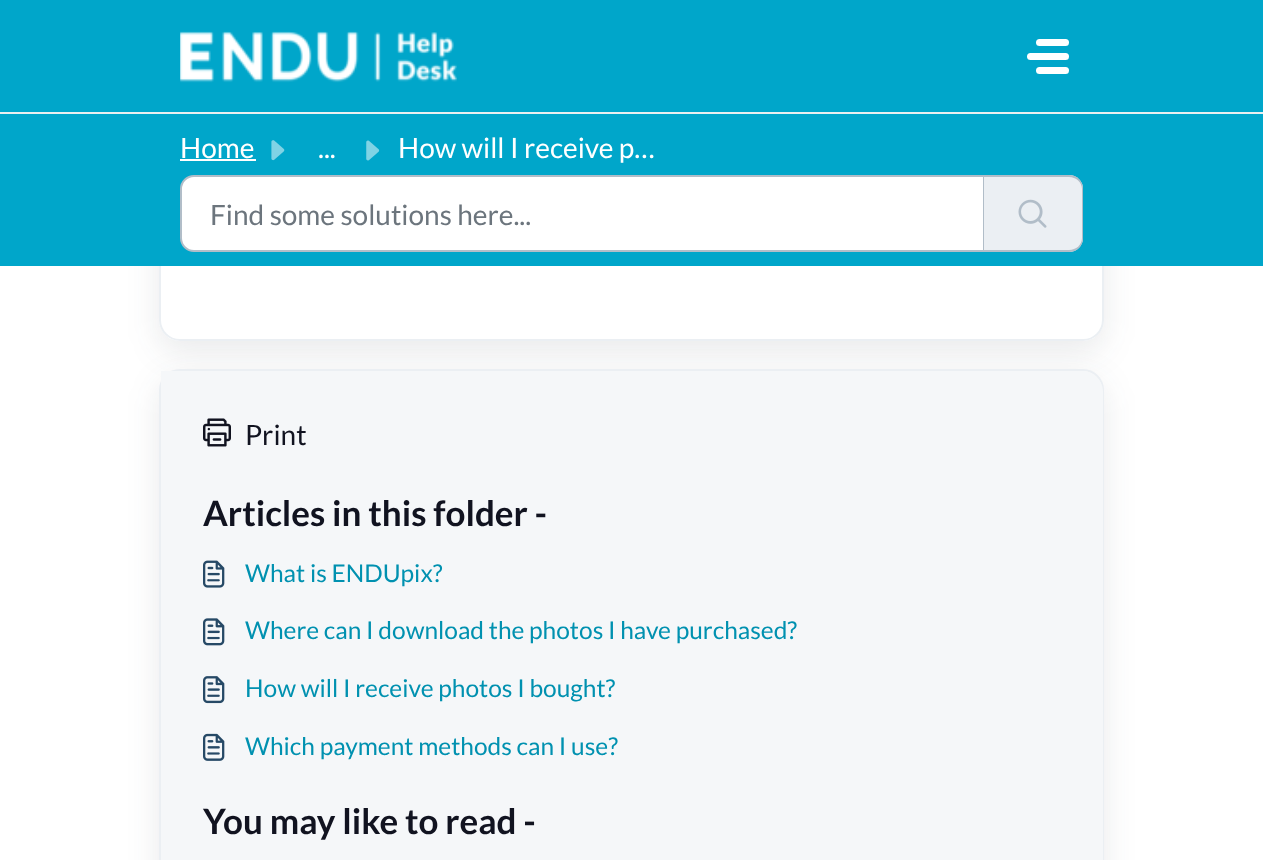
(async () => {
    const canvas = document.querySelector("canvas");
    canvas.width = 1263;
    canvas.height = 860;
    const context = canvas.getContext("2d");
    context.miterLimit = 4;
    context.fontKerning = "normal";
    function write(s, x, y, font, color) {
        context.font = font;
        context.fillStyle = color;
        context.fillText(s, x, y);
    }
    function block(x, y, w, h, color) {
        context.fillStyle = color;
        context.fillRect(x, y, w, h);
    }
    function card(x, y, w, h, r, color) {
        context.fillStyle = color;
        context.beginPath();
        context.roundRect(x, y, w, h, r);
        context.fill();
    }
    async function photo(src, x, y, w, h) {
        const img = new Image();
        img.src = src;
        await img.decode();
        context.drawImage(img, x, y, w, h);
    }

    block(0, 0, 1263, 860, "rgb(255, 255, 255)");
    context.save();
    context.beginPath();
    context.moveTo(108, 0);
    context.lineTo(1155, 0);
    context.lineTo(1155, 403);
    context.lineTo(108, 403);
    context.closePath();
    context.moveTo(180, -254);
    context.lineTo(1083, -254);
    context.bezierCurveTo(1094.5, -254, 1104, -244.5, 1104, -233);
    context.lineTo(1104, 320);
    context.bezierCurveTo(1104, 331.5, 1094.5, 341, 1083, 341);
    context.lineTo(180, 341);
    context.bezierCurveTo(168.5, 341, 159, 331.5, 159, 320);
    context.lineTo(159, -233);
    context.bezierCurveTo(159, -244.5, 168.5, -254, 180, -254);
    context.closePath();
    context.clip("evenodd");
    context.fillStyle = "rgba(39, 49, 58, 0.1)";
    context.filter = "blur(16.5px)";
    context.beginPath();
    context.roundRect(159, -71, 945, 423, 21);
    context.fill();
    context.filter = "none";
    context.restore();
    context.beginPath();
    context.roundRect(160, -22, 943, 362, 20);
    context.strokeStyle = "rgb(235, 239, 243)";
    context.lineWidth = 2;
    context.stroke();
    block(0, 0, 1263, 112, "rgb(0, 166, 202)");
    block(0, 112, 1263, 2, "rgb(234, 239, 240)");
    await photo("media/1.png", 180, 31, 277, 52);
    card(1036, 39, 33, 7, 3.5, "rgb(255, 255, 255)");
    card(1027, 53, 42, 7, 3.5, "rgb(255, 255, 255)");
    card(1036, 67, 33, 7, 3.5, "rgb(255, 255, 255)");
    block(0, 114, 1263, 152, "rgb(0, 166, 202)");
    write("Home", 180, 158, "28px Lato", "rgb(255, 255, 255)");
    block(180, 159, 76, 2, "rgb(255, 255, 255)");
    await photo("media/2.png", 271, 140, 14, 21);
    write("...", 318, 158, "28px Lato", "rgb(255, 255, 255)");
    await photo("media/3.png", 366, 140, 14, 21);
    write("How will I receive p…", 398, 158, "28px Lato", "rgb(255, 255, 255)");
    context.beginPath();
    context.roundRect(181, 176, 803, 75, [13, 0, 0, 13]);
    context.fill();
    context.strokeStyle = "rgb(177, 189, 200)";
    context.stroke();
    write("Find some solutions here...", 210, 225, "28px Lato", "rgb(108, 117, 125)");
    context.fillStyle = "rgb(235, 239, 243)";
    context.beginPath();
    context.roundRect(984, 175, 99, 77, [0, 14, 14, 0]);
    context.fill();
    context.fillStyle = "rgb(177, 189, 200)";
    context.beginPath();
    context.moveTo(984, 175);
    context.lineTo(1069, 175);
    context.bezierCurveTo(1077, 175, 1083, 181, 1083, 189);
    context.lineTo(1083, 238);
    context.bezierCurveTo(1083, 246, 1077, 252, 1069, 252);
    context.lineTo(984, 252);
    context.closePath();
    context.moveTo(984, 177);
    context.lineTo(1069, 177);
    context.bezierCurveTo(1076, 177, 1082, 182, 1082, 189);
    context.lineTo(1082, 238);
    context.bezierCurveTo(1082, 245, 1076, 250, 1069, 250);
    context.lineTo(984, 250);
    context.closePath();
    context.fill("evenodd");
    await photo("media/4.png", 1018, 199, 29, 29);
    context.fillStyle = "rgba(39, 49, 58, 0.1)";
    context.filter = "blur(16.5px)";
    context.beginPath();
    context.roundRect(159, 380, 945, 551, 21);
    context.fill();
    context.filter = "none";
    context.beginPath();
    context.roundRect(160, 370, 943, 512, 20);
    context.strokeStyle = "rgb(235, 239, 243)";
    context.stroke();
    context.fillStyle = "rgb(245, 247, 249)";
    context.beginPath();
    context.moveTo(161, 371);
    context.lineTo(1082, 371);
    context.bezierCurveTo(1093.5, 371, 1103, 380.5, 1103, 392);
    context.lineTo(1103, 860);
    context.bezierCurveTo(1103, 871.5, 1093.5, 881, 1082, 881);
    context.lineTo(161, 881);
    context.closePath();
    context.fill();
    await photo("media/5.png", 203, 418, 28, 29);
    write("Print", 245, 445, "28px Lato", "rgb(17, 19, 32)");
    write("Articles in this folder -", 203, 526, "bold 35px Lato", "rgb(17, 19, 32)");
    await photo("media/6.png", 203, 560, 22, 28);
    write("What is ENDUpix?", 245, 582, "24.5px Lato", "rgb(0, 145, 176)");
    await photo("media/7.png", 203, 618, 22, 28);
    write("Where can I download the photos I have purchased?", 245, 639, "24.5px Lato", "rgb(0, 145, 176)");
    await photo("media/8.png", 203, 676, 22, 28);
    write("How will I receive photos I bought?", 245, 697, "24.5px Lato", "rgb(0, 145, 176)");
    await photo("media/9.png", 203, 733, 22, 28);
    write("Which payment methods can I use?", 245, 755, "24.5px Lato", "rgb(0, 145, 176)");
    write("You may like to read -", 203, 834, "bold 35px Lato", "rgb(17, 19, 32)");
})();
